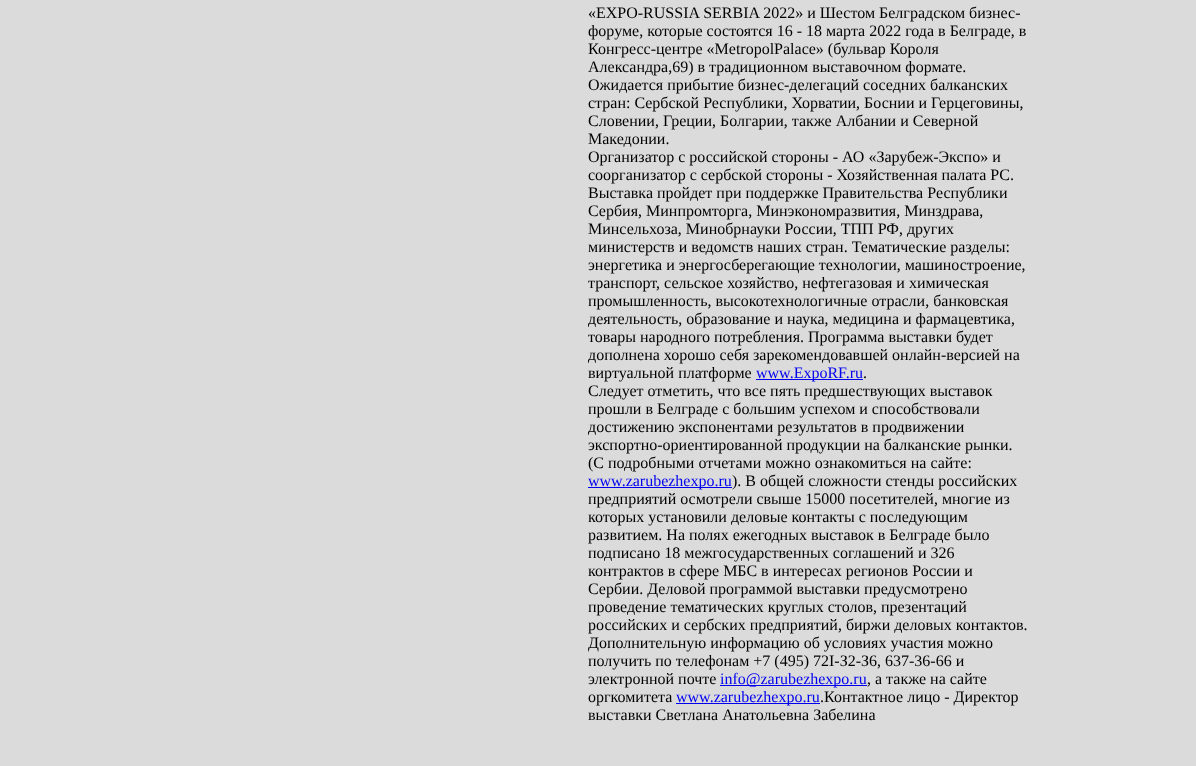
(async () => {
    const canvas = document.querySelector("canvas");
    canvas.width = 1196;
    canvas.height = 766;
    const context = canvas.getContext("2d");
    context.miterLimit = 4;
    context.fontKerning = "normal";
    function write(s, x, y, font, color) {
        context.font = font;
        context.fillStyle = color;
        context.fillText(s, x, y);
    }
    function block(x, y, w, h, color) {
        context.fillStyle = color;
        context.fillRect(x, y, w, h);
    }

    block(0, 0, 1196, 766, "rgb(219, 219, 219)");
    write("«EXPO-RUSSIA SERBIA 2022» и Шестом Белградском бизнес-", 588, 18, "16px Liberation Serif", "rgb(0, 0, 0)");
    write("форуме, которые состоятся 16 - 18 марта 2022 года в Белграде, в", 588, 36, "16px Liberation Serif", "rgb(0, 0, 0)");
    write("Конгресс-центре «МetropolPalace» (бульвар Короля", 588, 54, "16px Liberation Serif", "rgb(0, 0, 0)");
    write("Александра,69) в традиционном выставочном формате.", 588, 72, "16px Liberation Serif", "rgb(0, 0, 0)");
    write("Ожидается прибытие бизнес-делегаций соседних балканских", 588, 90, "16px Liberation Serif", "rgb(0, 0, 0)");
    write("стран: Сербской Республики, Хорватии, Боснии и Герцеговины,", 588, 108, "16px Liberation Serif", "rgb(0, 0, 0)");
    write("Словении, Греции, Болгарии, также Албании и Северной", 588, 126, "16px Liberation Serif", "rgb(0, 0, 0)");
    write("Македонии.", 588, 144, "16px Liberation Serif", "rgb(0, 0, 0)");
    write("Организатор с российской стороны - АО «Зарубеж-Экспо» и", 588, 162, "16px Liberation Serif", "rgb(0, 0, 0)");
    write("соорганизатор с сербской стороны - Хозяйственная палата РС.", 588, 180, "16px Liberation Serif", "rgb(0, 0, 0)");
    write("Выставка пройдет при поддержке Правительства Республики", 588, 198, "16px Liberation Serif", "rgb(0, 0, 0)");
    write("Сербия, Минпромторга, Минэкономразвития, Минздрава,", 588, 216, "16px Liberation Serif", "rgb(0, 0, 0)");
    write("Минсельхоза, Минобрнауки России, ТПП РФ, других", 588, 234, "16px Liberation Serif", "rgb(0, 0, 0)");
    write("министерств и ведомств наших стран. Тематические разделы:", 588, 252, "16px Liberation Serif", "rgb(0, 0, 0)");
    write("энергетика и энергосберегающие технологии, машиностроение,", 588, 270, "16px Liberation Serif", "rgb(0, 0, 0)");
    write("транспорт, сельское хозяйство, нефтегазовая и химическая", 588, 288, "16px Liberation Serif", "rgb(0, 0, 0)");
    write("промышленность, высокотехнологичные отрасли, банковская", 588, 306, "16px Liberation Serif", "rgb(0, 0, 0)");
    write("деятельность, образование и наука, медицина и фармацевтика,", 588, 324, "16px Liberation Serif", "rgb(0, 0, 0)");
    write("товары народного потребления. Программа выставки будет", 588, 342, "16px Liberation Serif", "rgb(0, 0, 0)");
    write("дополнена хорошо себя зарекомендовавшей онлайн-версией на", 588, 360, "16px Liberation Serif", "rgb(0, 0, 0)");
    write("виртуальной платформе", 588, 378, "16px Liberation Serif", "rgb(0, 0, 0)");
    block(756, 379, 107, 1, "rgb(0, 0, 238)");
    write("www.ExpoRF.ru", 756, 378, "16px Liberation Serif", "rgb(0, 0, 238)");
    write(".", 863, 378, "16px Liberation Serif", "rgb(0, 0, 0)");
    write("Следует отметить, что все пять предшествующих выставок", 588, 396, "16px Liberation Serif", "rgb(0, 0, 0)");
    write("прошли в Белграде с большим успехом и способствовали", 588, 414, "16px Liberation Serif", "rgb(0, 0, 0)");
    write("достижению экспонентами результатов в продвижении", 588, 432, "16px Liberation Serif", "rgb(0, 0, 0)");
    write("экспортно-ориентированной продукции на балканские рынки.", 588, 450, "16px Liberation Serif", "rgb(0, 0, 0)");
    write("(С подробными отчетами можно ознакомиться на сайте:", 588, 468, "16px Liberation Serif", "rgb(0, 0, 0)");
    block(588, 487, 144, 1, "rgb(0, 0, 238)");
    write("www.zarubezhexpo.ru", 588, 486, "16px Liberation Serif", "rgb(0, 0, 238)");
    write("). В общей сложности стенды российских", 732, 486, "16px Liberation Serif", "rgb(0, 0, 0)");
    write("предприятий осмотрели свыше 15000 посетителей, многие из", 588, 504, "16px Liberation Serif", "rgb(0, 0, 0)");
    write("которых установили деловые контакты с последующим", 588, 522, "16px Liberation Serif", "rgb(0, 0, 0)");
    write("развитием. На полях ежегодных выставок в Белграде было", 588, 540, "16px Liberation Serif", "rgb(0, 0, 0)");
    write("подписано 18 межгосударственных соглашений и 326", 588, 558, "16px Liberation Serif", "rgb(0, 0, 0)");
    write("контрактов в сфере МБС в интересах регионов России и", 588, 576, "16px Liberation Serif", "rgb(0, 0, 0)");
    write("Сербии. Деловой программой выставки предусмотрено", 588, 594, "16px Liberation Serif", "rgb(0, 0, 0)");
    write("проведение тематических круглых столов, презентаций", 588, 612, "16px Liberation Serif", "rgb(0, 0, 0)");
    write("российских и сербских предприятий, биржи деловых контактов.", 588, 630, "16px Liberation Serif", "rgb(0, 0, 0)");
    write("Дополнительную информацию об условиях участия можно", 588, 648, "16px Liberation Serif", "rgb(0, 0, 0)");
    write("получить по телефонам +7 (495) 72I-З2-З6, 637-36-66 и", 588, 666, "16px Liberation Serif", "rgb(0, 0, 0)");
    write("электронной почте", 588, 684, "16px Liberation Serif", "rgb(0, 0, 0)");
    block(720, 685, 147, 1, "rgb(0, 0, 238)");
    write("info@zarubezhexpo.ru", 720, 684, "16px Liberation Serif", "rgb(0, 0, 238)");
    write(", а также на сайте", 867, 684, "16px Liberation Serif", "rgb(0, 0, 0)");
    write("оргкомитета", 588, 702, "16px Liberation Serif", "rgb(0, 0, 0)");
    block(676, 703, 144, 1, "rgb(0, 0, 238)");
    write("www.zarubezhexpo.ru", 676, 702, "16px Liberation Serif", "rgb(0, 0, 238)");
    write(".Контактное лицо - Директор", 820, 702, "16px Liberation Serif", "rgb(0, 0, 0)");
    write("выставки Светлана Анатольевна Забелина", 588, 720, "16px Liberation Serif", "rgb(0, 0, 0)");
})();
